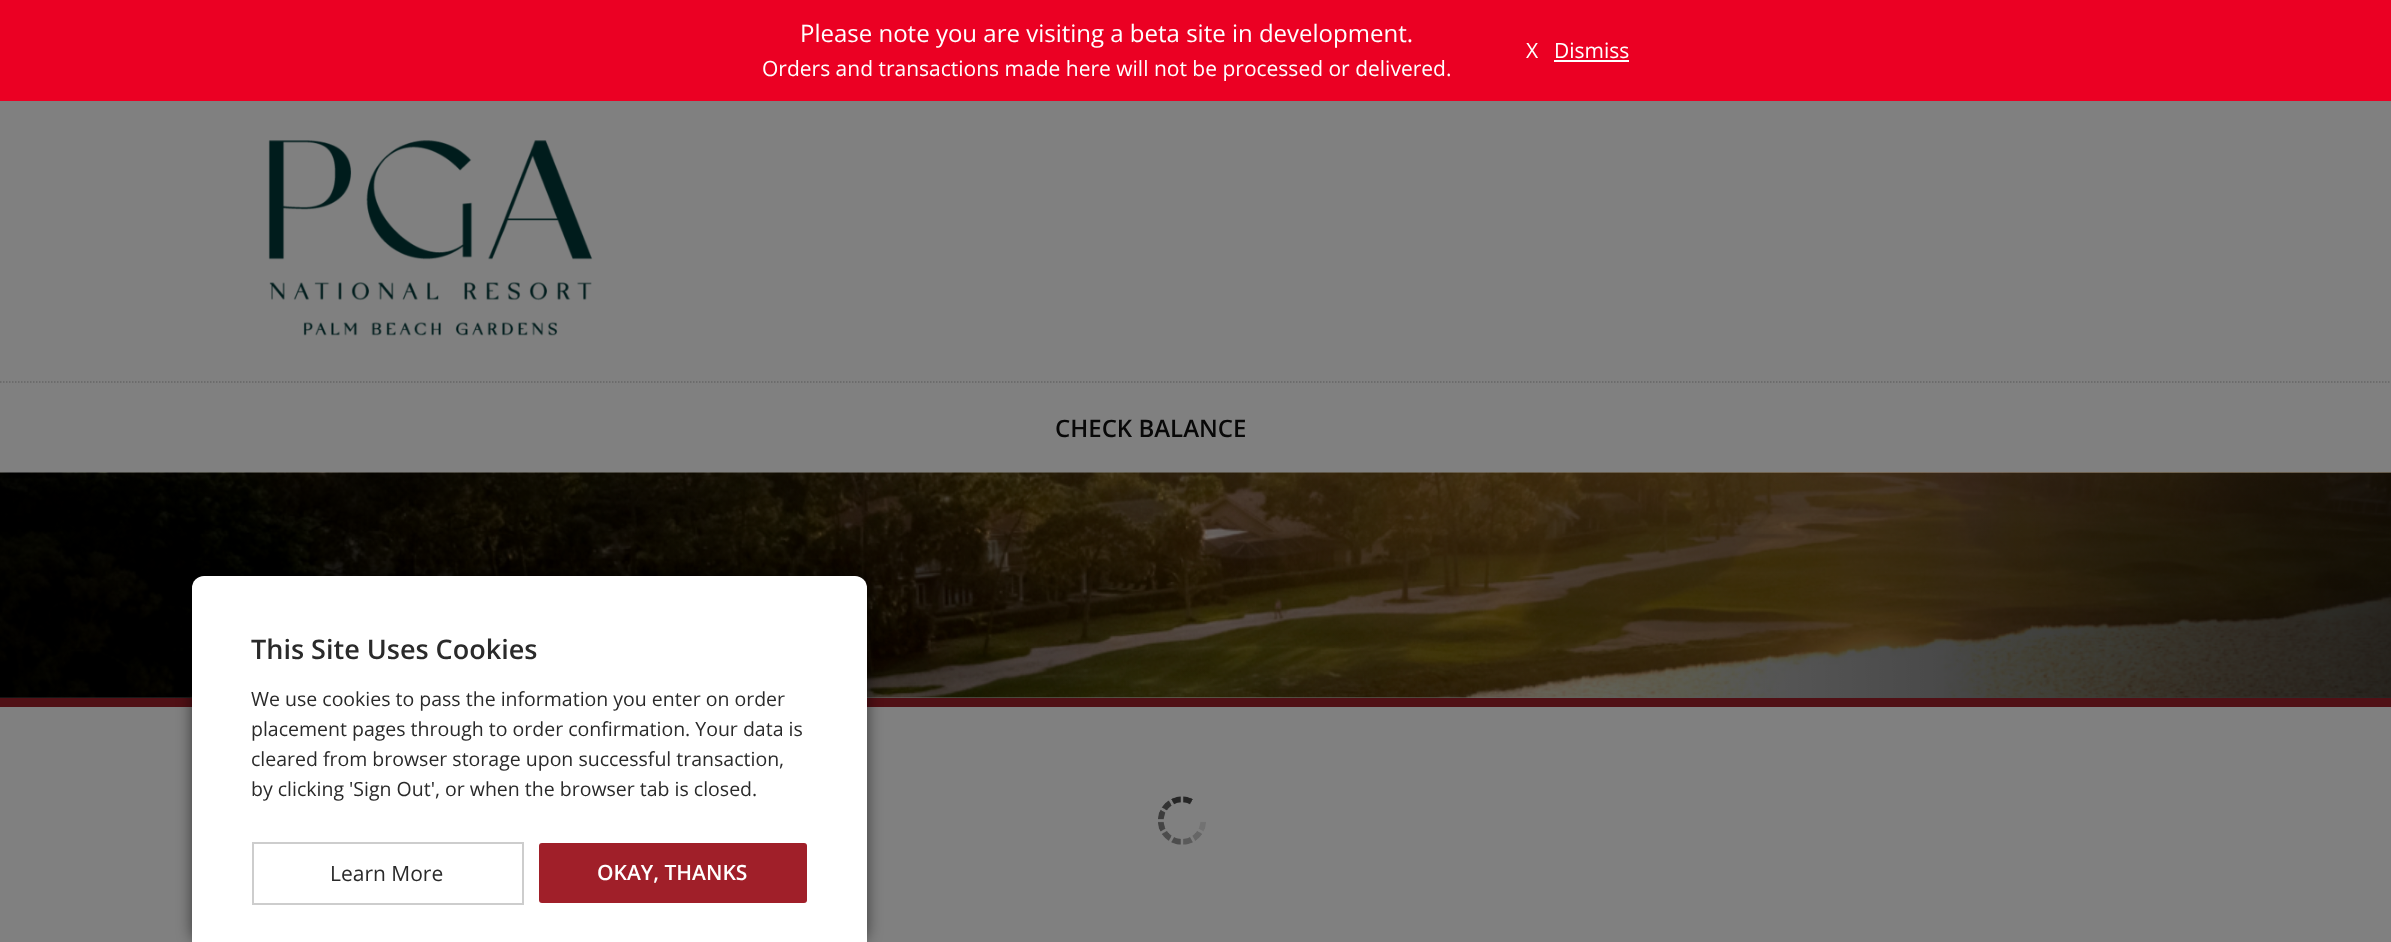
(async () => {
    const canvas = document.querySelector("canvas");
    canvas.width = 2391;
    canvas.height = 942;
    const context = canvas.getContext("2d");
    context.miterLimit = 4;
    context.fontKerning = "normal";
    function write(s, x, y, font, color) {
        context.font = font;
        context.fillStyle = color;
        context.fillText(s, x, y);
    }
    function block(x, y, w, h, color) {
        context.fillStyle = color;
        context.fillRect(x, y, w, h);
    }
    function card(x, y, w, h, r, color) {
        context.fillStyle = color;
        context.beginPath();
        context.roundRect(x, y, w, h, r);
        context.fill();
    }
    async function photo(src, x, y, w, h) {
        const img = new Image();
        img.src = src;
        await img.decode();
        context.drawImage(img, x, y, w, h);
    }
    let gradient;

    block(0, 0, 2391, 942, "rgb(128, 128, 128)");
    block(0, 0, 2391, 101, "rgb(235, 0, 35)");
    write("Please note you are visiting a beta site in development.", 800, 42, "24px Open Sans", "rgb(255, 255, 255)");
    write("Orders and transactions made here will not be processed or delivered.", 762, 76, "21px Open Sans", "rgb(255, 255, 255)");
    write("X", 1526, 58, "21px Open Sans", "rgb(255, 255, 255)");
    write("Dismiss", 1554, 58, "21px Open Sans", "rgb(255, 255, 255)");
    block(1554, 60, 75, 2, "rgb(255, 255, 255)");
    await photo("media/1.png", 268, 140, 325, 196);
    context.save();
    context.beginPath();
    context.moveTo(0, 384);
    context.lineTo(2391, 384);
    context.lineTo(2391, 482);
    context.lineTo(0, 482);
    context.closePath();
    context.moveTo(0, 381);
    context.lineTo(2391, 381);
    context.lineTo(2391, 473);
    context.lineTo(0, 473);
    context.closePath();
    context.clip("evenodd");
    context.fillStyle = "rgba(0, 0, 0, 0.12)";
    context.filter = "blur(1.5px)";
    context.beginPath();
    context.rect(3, 390, 2385, 86);
    context.fill();
    context.filter = "none";
    context.restore();
    context.beginPath();
    context.moveTo(0, 382);
    context.lineTo(2391, 382);
    context.strokeStyle = "rgb(102, 102, 102)";
    context.lineWidth = 1.5;
    context.setLineDash([1.5, 1.5]);
    context.stroke();
    write("CHECK BALANCE", 1055, 437, "600 24px Open Sans", "rgb(8, 8, 8)");
    await photo("media/2.png", 0, 472, 2391, 226);
    gradient = context.createRadialGradient(1196, 698, 0, 1196, 698, 1216);
    gradient.addColorStop(0, "rgba(0, 0, 0, 0)");
    gradient.addColorStop(1, "rgba(0, 0, 0, 0.7)");
    context.fillStyle = gradient;
    context.fillRect(0, 473, 2391, 225);
    block(0, 698, 2391, 9, "rgb(80, 16, 21)");
    await photo("media/3.png", 1158, 796, 48, 49);
    context.fillStyle = "rgba(0, 0, 0, 0.56)";
    context.filter = "blur(7.5px)";
    context.beginPath();
    context.roundRect(192, 576, 675, 366, 12);
    context.fill();
    context.filter = "none";
    context.fillStyle = "rgb(255, 255, 255)";
    context.beginPath();
    context.roundRect(192, 576, 675, 366, [12, 12, 0, 0]);
    context.fill();
    write("This Site Uses Cookies", 251, 659, "600 27px Open Sans", "rgb(42, 42, 42)");
    write("We use cookies to pass the information you enter on order", 251, 706, "19.5px Open Sans", "rgb(42, 42, 42)");
    write("placement pages through to order confirmation. Your data is", 251, 736, "19.5px Open Sans", "rgb(42, 42, 42)");
    write("cleared from browser storage upon successful transaction,", 251, 766, "19.5px Open Sans", "rgb(42, 42, 42)");
    write("by clicking 'Sign Out', or when the browser tab is closed.", 251, 796, "19.5px Open Sans", "rgb(42, 42, 42)");
    context.strokeStyle = "rgb(205, 205, 205)";
    context.lineWidth = 2;
    context.setLineDash([]);
    context.strokeRect(253, 843, 270, 61);
    write("Learn More", 330, 881, "21px Open Sans", "rgb(42, 42, 42)");
    card(539, 843, 268, 60, 3, "rgb(160, 31, 41)");
    write("OKAY, THANKS", 597, 880, "600 21px Open Sans", "rgb(255, 255, 255)");
})();
